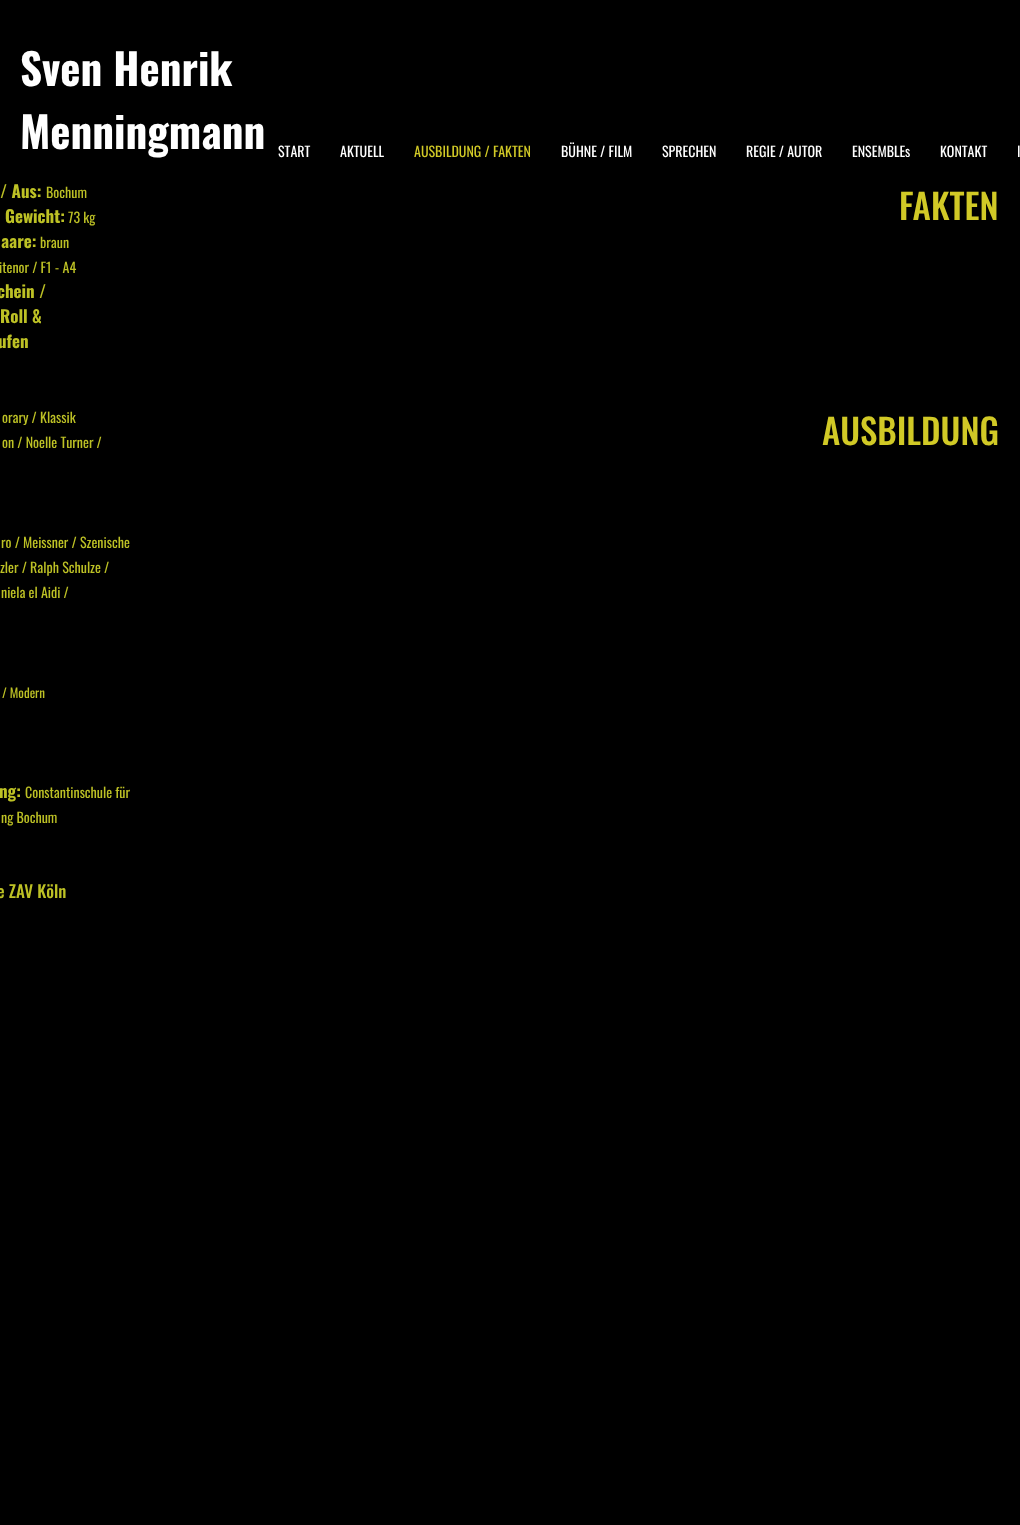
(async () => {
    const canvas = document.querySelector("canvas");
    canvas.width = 1020;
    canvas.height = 1525;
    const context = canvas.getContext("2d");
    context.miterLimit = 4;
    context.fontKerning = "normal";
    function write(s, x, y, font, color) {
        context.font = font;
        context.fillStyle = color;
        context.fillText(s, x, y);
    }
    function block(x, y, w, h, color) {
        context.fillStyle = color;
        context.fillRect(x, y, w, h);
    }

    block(0, 0, 1020, 1525, "rgb(0, 0, 0)");
    write("Sven Henrik", 20, 86, "bold 43px Oswald", "rgb(255, 255, 255)");
    write("Menningmann", 20, 149, "bold 43px Oswald", "rgb(255, 255, 255)");
    write("START", 278, 157, "14px Oswald", "rgb(255, 255, 255)");
    write("AKTUELL", 340, 157, "14px Oswald", "rgb(255, 255, 255)");
    write("AUSBILDUNG / FAKTEN", 414, 157, "14px Oswald", "rgb(209, 201, 38)");
    write("BÜHNE / FILM", 561, 157, "14px Oswald", "rgb(255, 255, 255)");
    write("SPRECHEN", 662, 157, "14px Oswald", "rgb(255, 255, 255)");
    write("REGIE / AUTOR", 746, 157, "14px Oswald", "rgb(255, 255, 255)");
    write("ENSEMBLEs", 852, 157, "14px Oswald", "rgb(255, 255, 255)");
    write("KONTAKT", 940, 157, "14px Oswald", "rgb(255, 255, 255)");
    write("I", 1017, 157, "14px Oswald", "rgb(255, 255, 255)");
    write("/ Aus:", 0, 198, "bold 17px Oswald", "rgb(189, 193, 37)");
    write("Bochum", 46, 198, "14px Oswald", "rgb(189, 193, 37)");
    write("Gewicht:", 5, 223, "bold 17px Oswald", "rgb(189, 193, 37)");
    write("73 kg", 68, 223, "14px Oswald", "rgb(189, 193, 37)");
    write("aare:", 1, 248, "bold 17px Oswald", "rgb(189, 193, 37)");
    write("braun", 40, 248, "14px Oswald", "rgb(189, 193, 37)");
    write("itenor / F1 - A4", -1, 273, "14px Oswald", "rgb(189, 193, 37)");
    write("chein /", -3, 298, "bold 17px Oswald", "rgb(189, 193, 37)");
    write("Roll &", 0, 323, "bold 17px Oswald", "rgb(189, 193, 37)");
    write("ufen", -2, 348, "bold 17px Oswald", "rgb(189, 193, 37)");
    write("FAKTEN", 899, 220, "500 35px Oswald", "rgb(209, 201, 38)");
    write("orary / Klassik", 2, 423, "14px Oswald", "rgb(189, 193, 37)");
    write("on / Noelle Turner /", 2, 448, "14px Oswald", "rgb(189, 193, 37)");
    write("ro / Meissner / Szenische", 1, 548, "14px Oswald", "rgb(189, 193, 37)");
    write("zler / Ralph Schulze /", 0, 573, "14px Oswald", "rgb(189, 193, 37)");
    write("niela el Aidi /", 1, 598, "14px Oswald", "rgb(189, 193, 37)");
    write("/ Modern", 2, 698, "13px Oswald", "rgb(189, 193, 37)");
    write("ng:", -1, 798, "bold 17px Oswald", "rgb(189, 193, 37)");
    write("Constantinschule für", 25, 798, "14px Oswald", "rgb(189, 193, 37)");
    write("ng Bochum", 1, 823, "14px Oswald", "rgb(189, 193, 37)");
    write("e ZAV Köln", -3, 898, "500 17px Oswald", "rgb(189, 193, 37)");
    write("AUSBILDUNG", 822, 445, "500 35px Oswald", "rgb(209, 201, 38)");
})();
